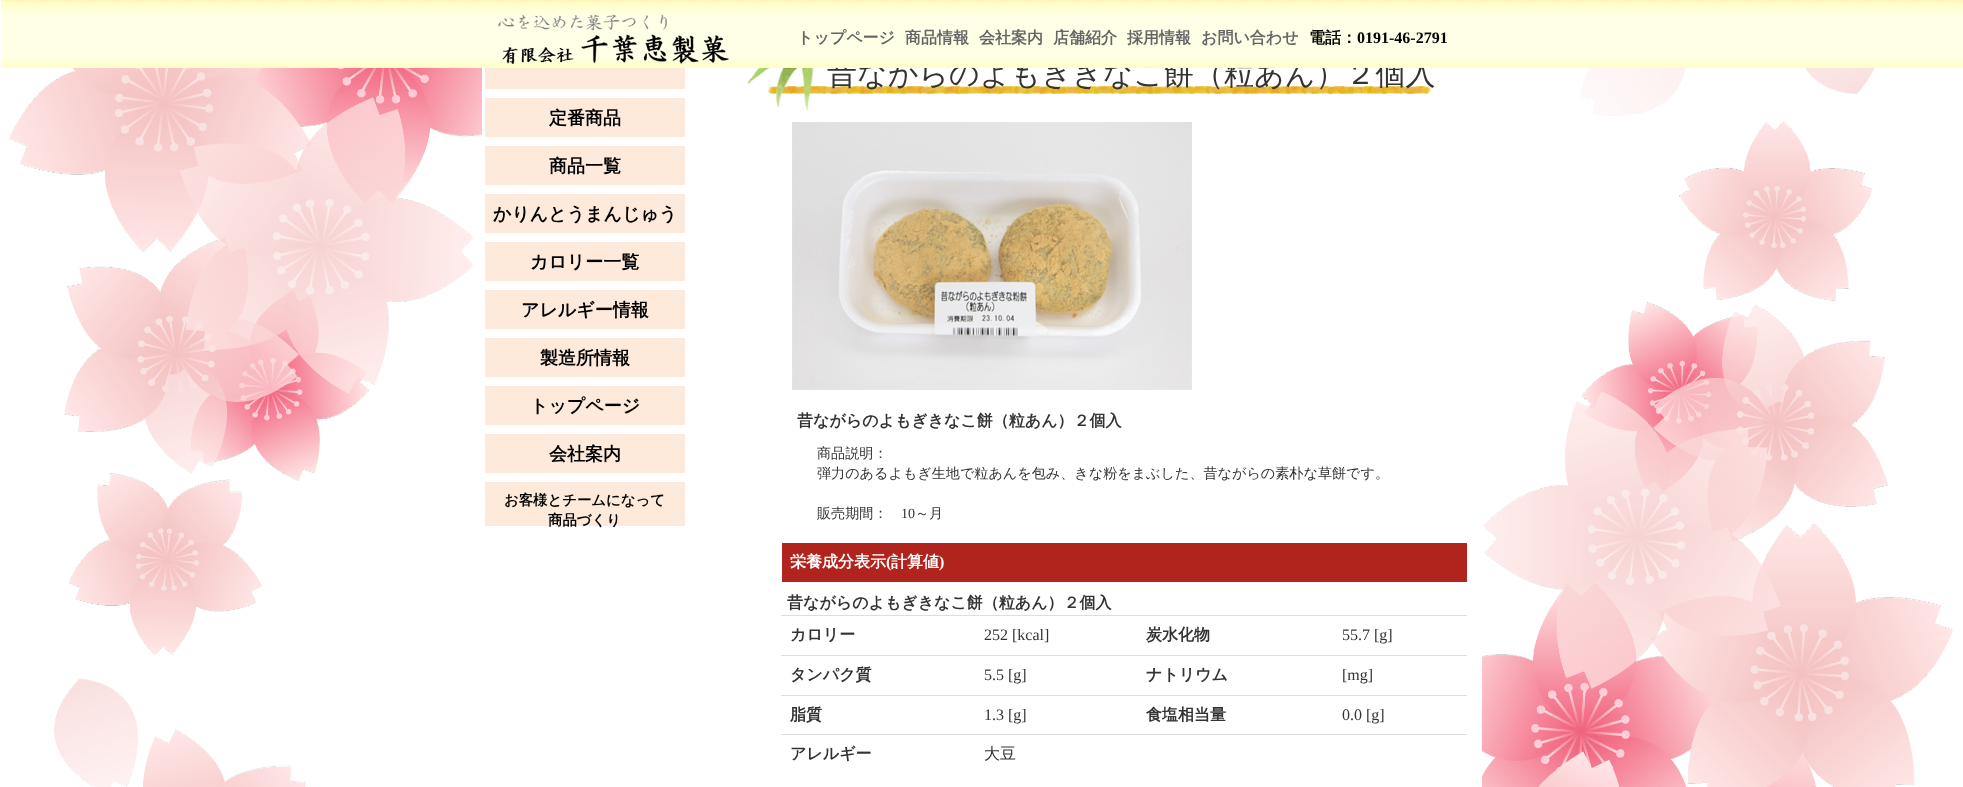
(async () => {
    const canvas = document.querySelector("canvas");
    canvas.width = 1963;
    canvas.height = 787;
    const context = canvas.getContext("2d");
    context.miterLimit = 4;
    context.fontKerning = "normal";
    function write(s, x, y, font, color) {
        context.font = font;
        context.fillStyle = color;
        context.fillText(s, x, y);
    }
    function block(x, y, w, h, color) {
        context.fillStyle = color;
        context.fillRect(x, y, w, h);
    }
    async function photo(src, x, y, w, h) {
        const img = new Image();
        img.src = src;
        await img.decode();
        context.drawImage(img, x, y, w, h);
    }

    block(0, 0, 1963, 787, "rgb(255, 255, 255)");
    await photo("media/5.png", 9, 67, 1944, 720);
    block(482, 67, 1000, 720, "rgb(255, 255, 255)");
    block(485, 67, 200, 22, "rgb(253, 234, 218)");
    await photo("media/3.png", 747, 67, 684, 43);
    write("昔ながらのよもぎきなこ餅（粒あん）２個入", 827, 84, "500 30px WenQuanYi Zen Hei", "rgb(51, 51, 51)");
    await photo("media/1.png", 1, 0, 1962, 68);
    await photo("media/2.png", 498, 15, 231, 49);
    write("トップページ", 797, 43, "bold 16px WenQuanYi Zen Hei", "rgb(102, 102, 102)");
    write("商品情報", 905, 43, "bold 16px WenQuanYi Zen Hei", "rgb(102, 102, 102)");
    write("会社案内", 979, 43, "bold 16px WenQuanYi Zen Hei", "rgb(102, 102, 102)");
    write("店舗紹介", 1053, 43, "bold 16px WenQuanYi Zen Hei", "rgb(102, 102, 102)");
    write("採用情報", 1127, 43, "bold 16px WenQuanYi Zen Hei", "rgb(102, 102, 102)");
    write("お問い合わせ", 1201, 43, "bold 16px WenQuanYi Zen Hei", "rgb(102, 102, 102)");
    write("電話：", 1309, 43, "bold 16px WenQuanYi Zen Hei", "rgb(0, 0, 0)");
    write("0191-46-2791", 1357, 43, "bold 16px Liberation Serif", "rgb(0, 0, 0)");
    block(485, 98, 200, 39, "rgb(253, 234, 218)");
    write("定番商品", 549, 124, "bold 18px WenQuanYi Zen Hei", "rgb(0, 0, 0)");
    block(485, 146, 200, 39, "rgb(253, 234, 218)");
    write("商品一覧", 549, 172, "bold 18px WenQuanYi Zen Hei", "rgb(0, 0, 0)");
    block(485, 194, 200, 39, "rgb(253, 234, 218)");
    write("かりんとうまんじゅう", 493, 220, "bold 18px WenQuanYi Zen Hei", "rgb(0, 0, 0)");
    block(485, 242, 200, 39, "rgb(253, 234, 218)");
    write("カロリー一覧", 530, 268, "bold 18px WenQuanYi Zen Hei", "rgb(0, 0, 0)");
    block(485, 290, 200, 39, "rgb(253, 234, 218)");
    write("アレルギー情報", 521, 316, "bold 18px WenQuanYi Zen Hei", "rgb(0, 0, 0)");
    block(485, 338, 200, 39, "rgb(253, 234, 218)");
    write("製造所情報", 540, 364, "bold 18px WenQuanYi Zen Hei", "rgb(0, 0, 0)");
    block(485, 386, 200, 39, "rgb(253, 234, 218)");
    write("トップページ", 530, 412, "bold 18px WenQuanYi Zen Hei", "rgb(0, 0, 0)");
    block(485, 434, 200, 39, "rgb(253, 234, 218)");
    write("会社案内", 549, 460, "bold 18px WenQuanYi Zen Hei", "rgb(0, 0, 0)");
    block(485, 482, 200, 44, "rgb(253, 234, 218)");
    write("お客様とチームになって", 504, 505, "bold 14.4px WenQuanYi Zen Hei", "rgb(0, 0, 0)");
    write("商品づくり", 548, 525, "bold 14.4px WenQuanYi Zen Hei", "rgb(0, 0, 0)");
    await photo("media/4.png", 792, 122, 400, 268);
    write("昔ながらのよもぎきなこ餅（粒あん）２個入", 797, 426, "bold 16px WenQuanYi Zen Hei", "rgb(51, 51, 51)");
    write("商品説明：", 817, 458, "500 14.1px WenQuanYi Zen Hei", "rgb(51, 51, 51)");
    write("弾力のあるよもぎ生地で粒あんを包み、きな粉をまぶした、昔ながらの素朴な草餅です。", 817, 478, "500 14.1px WenQuanYi Zen Hei", "rgb(51, 51, 51)");
    write("販売期間：", 817, 518, "500 14.1px WenQuanYi Zen Hei", "rgb(51, 51, 51)");
    write("10", 901, 518, "14.1px Liberation Serif", "rgb(51, 51, 51)");
    write("～月", 915, 518, "500 14.1px WenQuanYi Zen Hei", "rgb(51, 51, 51)");
    block(782, 543, 685, 39, "rgb(177, 36, 29)");
    write("栄養成分表示", 790, 567, "bold 16px WenQuanYi Zen Hei", "rgb(255, 255, 255)");
    write("(", 886, 567, "bold 16px Liberation Serif", "rgb(255, 255, 255)");
    write("計算値", 891, 567, "bold 16px WenQuanYi Zen Hei", "rgb(255, 255, 255)");
    write(")", 939, 567, "bold 16px Liberation Serif", "rgb(255, 255, 255)");
    write("昔ながらのよもぎきなこ餅（粒あん）２個入", 787, 608, "bold 16px WenQuanYi Zen Hei", "rgb(51, 51, 51)");
    write("カロリー", 790, 640, "bold 16px WenQuanYi Zen Hei", "rgb(51, 51, 51)");
    write("252 [kcal]", 984, 640, "16px Liberation Serif", "rgb(51, 51, 51)");
    write("炭水化物", 1146, 640, "bold 16px WenQuanYi Zen Hei", "rgb(51, 51, 51)");
    block(781, 615, 686, 1, "rgb(221, 221, 221)");
    write("55.7 [g]", 1342, 640, "16px Liberation Serif", "rgb(51, 51, 51)");
    write("タンパク質", 790, 680, "bold 16px WenQuanYi Zen Hei", "rgb(51, 51, 51)");
    write("5.5 [g]", 984, 680, "16px Liberation Serif", "rgb(51, 51, 51)");
    write("ナトリウム", 1146, 680, "bold 16px WenQuanYi Zen Hei", "rgb(51, 51, 51)");
    block(781, 655, 686, 1, "rgb(221, 221, 221)");
    write("[mg]", 1342, 680, "16px Liberation Serif", "rgb(51, 51, 51)");
    write("脂質", 790, 720, "bold 16px WenQuanYi Zen Hei", "rgb(51, 51, 51)");
    write("1.3 [g]", 984, 720, "16px Liberation Serif", "rgb(51, 51, 51)");
    write("食塩相当量", 1146, 720, "bold 16px WenQuanYi Zen Hei", "rgb(51, 51, 51)");
    block(781, 695, 686, 1, "rgb(221, 221, 221)");
    write("0.0 [g]", 1342, 720, "16px Liberation Serif", "rgb(51, 51, 51)");
    write("アレルギー", 790, 759, "bold 16px WenQuanYi Zen Hei", "rgb(51, 51, 51)");
    block(781, 734, 686, 1, "rgb(221, 221, 221)");
    write("大豆", 984, 759, "500 16px WenQuanYi Zen Hei", "rgb(51, 51, 51)");
})();
